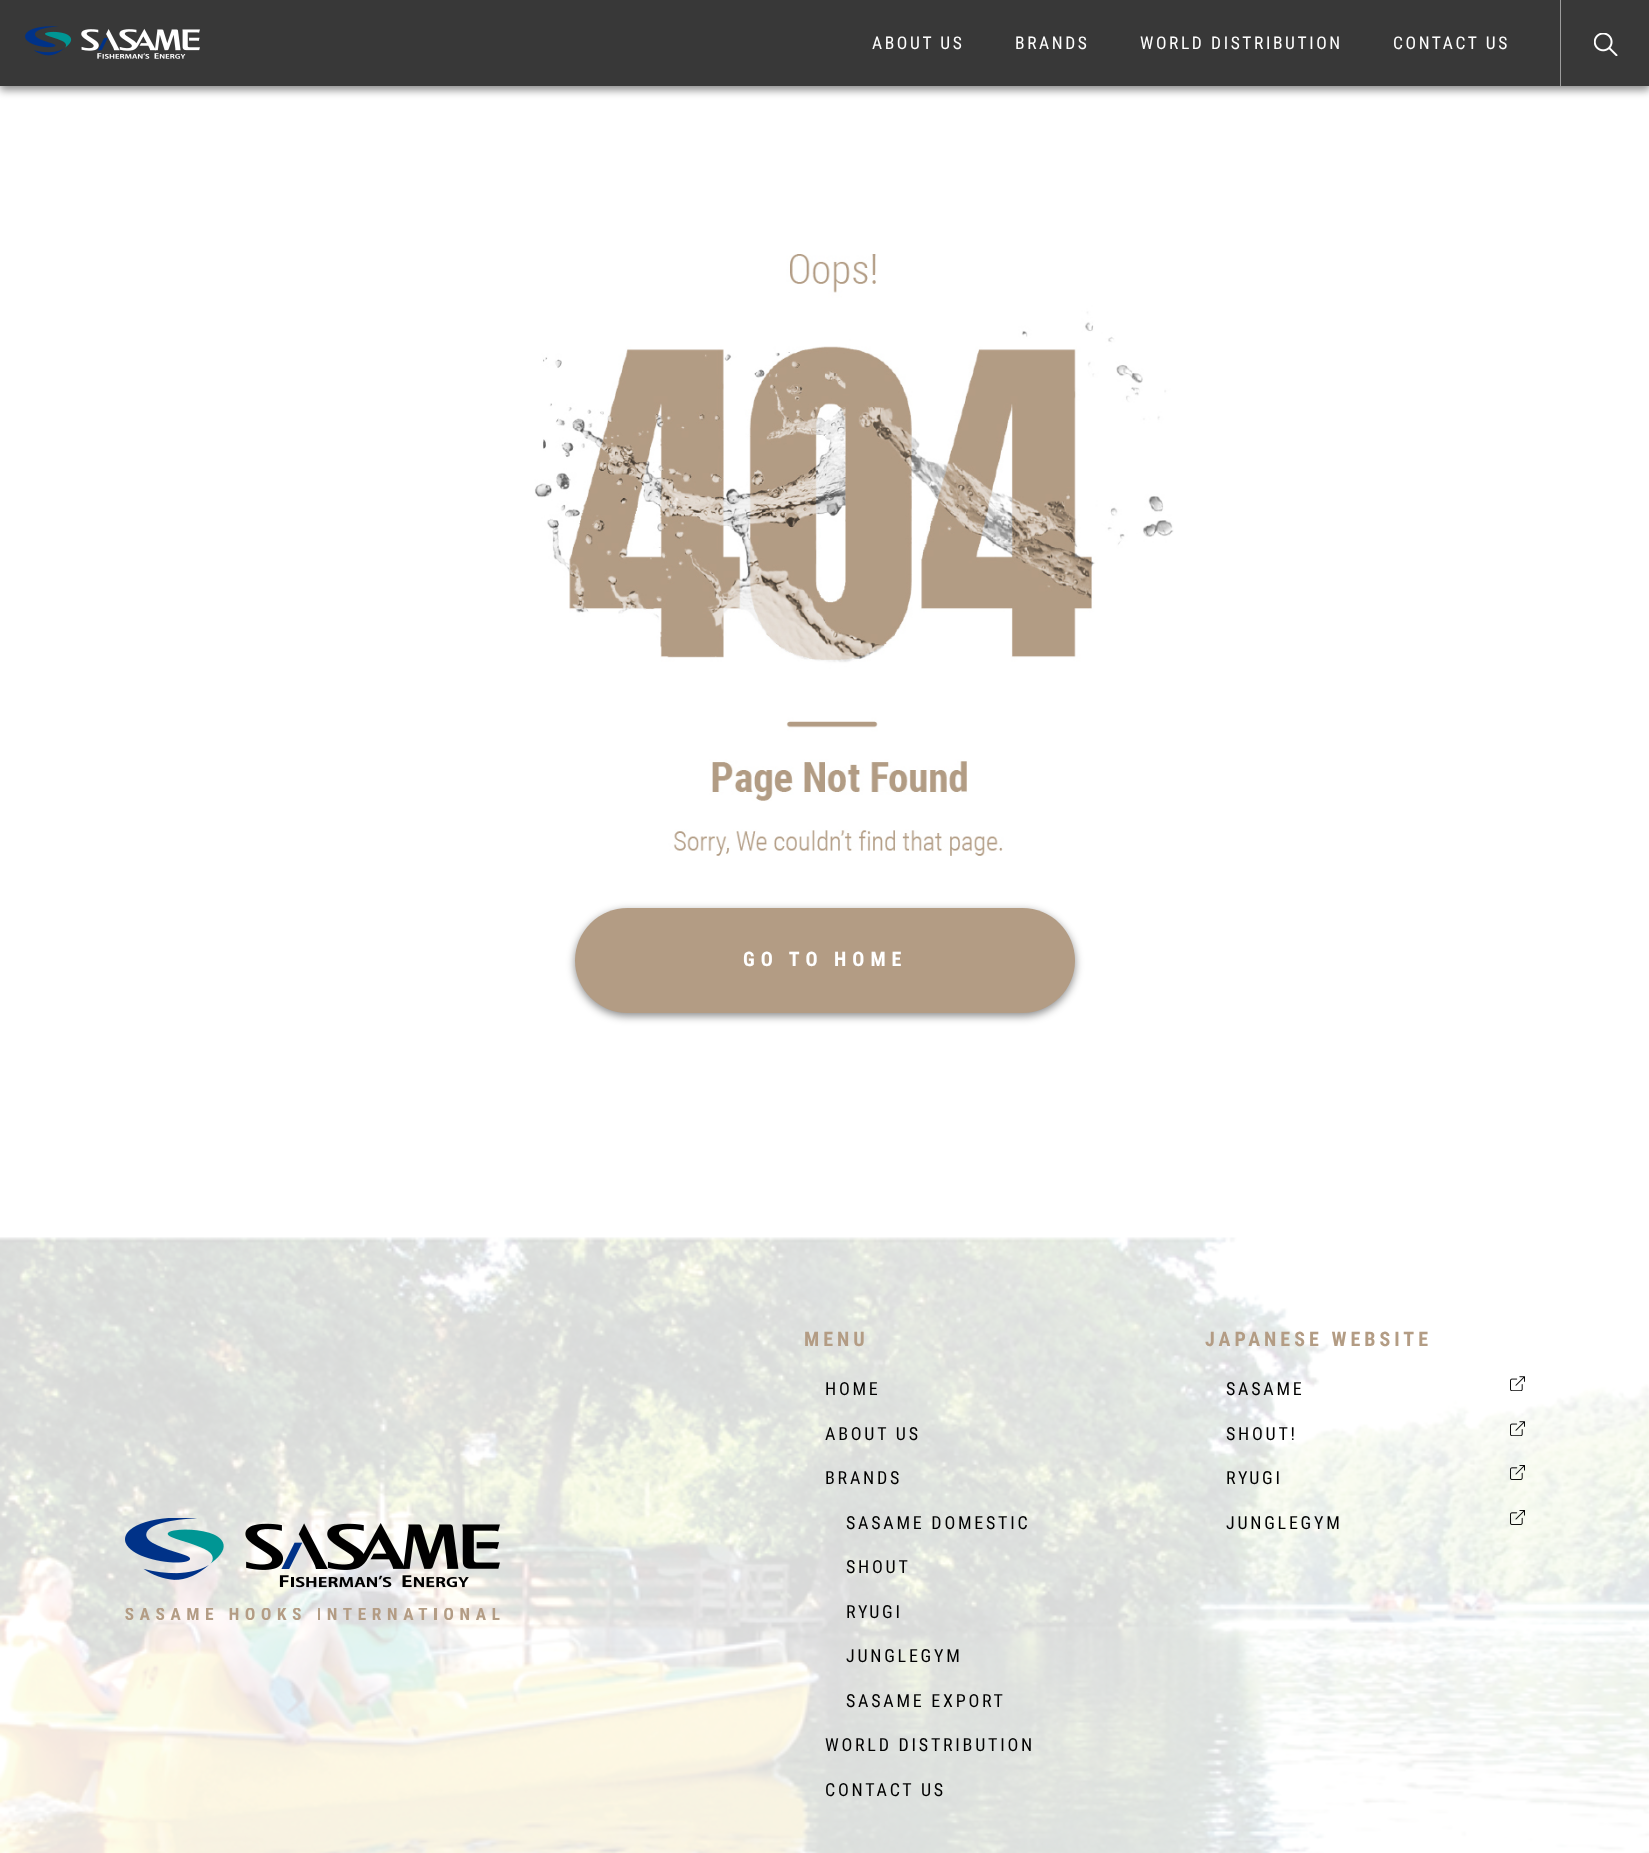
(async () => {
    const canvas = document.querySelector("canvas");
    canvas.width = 1649;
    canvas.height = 1853;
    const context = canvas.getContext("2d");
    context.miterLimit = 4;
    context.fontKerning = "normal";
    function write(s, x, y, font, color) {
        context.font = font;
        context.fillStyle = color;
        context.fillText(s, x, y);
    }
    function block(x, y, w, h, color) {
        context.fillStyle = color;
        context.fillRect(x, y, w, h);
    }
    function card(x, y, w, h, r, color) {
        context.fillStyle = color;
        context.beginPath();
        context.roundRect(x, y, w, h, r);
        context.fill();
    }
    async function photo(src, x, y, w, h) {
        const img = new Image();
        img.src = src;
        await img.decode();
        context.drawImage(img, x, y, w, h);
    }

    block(0, 0, 1649, 1853, "rgb(255, 255, 255)");
    context.fillStyle = "rgba(0, 0, 0, 0.46)";
    context.filter = "blur(4px)";
    context.beginPath();
    context.rect(0, 4, 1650, 86);
    context.fill();
    context.filter = "none";
    block(0, 0, 1649, 86, "rgb(56, 56, 56)");
    await photo("media/1.png", 25, 26, 175, 33);
    context.letterSpacing = "2.6px";
    write("ABOUT US", 872, 49, "17.5px Roboto Condensed", "rgb(255, 255, 255)");
    write("BRANDS", 1015, 49, "17.5px Roboto Condensed", "rgb(255, 255, 255)");
    write("WORLD DISTRIBUTION", 1140, 49, "17.5px Roboto Condensed", "rgb(255, 255, 255)");
    write("CONTACT US", 1393, 49, "17.5px Roboto Condensed", "rgb(255, 255, 255)");
    block(1560, 0, 1, 86, "rgb(156, 156, 156)");
    await photo("media/2.png", 1594, 33, 24, 23);
    await photo("media/3.png", 534, 254, 640, 602);
    context.fillStyle = "rgba(0, 0, 0, 0.46)";
    context.filter = "blur(4px)";
    context.beginPath();
    context.roundRect(575, 911, 500, 105, 52.5);
    context.fill();
    context.filter = "none";
    card(575, 908, 500, 105, 52.5, "rgb(179, 156, 132)");
    context.letterSpacing = "6px";
    write("GO TO HOME", 743, 966, "bold 20px Roboto Condensed", "rgb(255, 255, 255)");
    await photo("media/4.png", 0, 1237, 1649, 616);
    await photo("media/5.png", 125, 1518, 375, 70);
    await photo("media/6.png", 125, 1608, 375, 12);
    context.letterSpacing = "4px";
    write("MENU", 804, 1346, "bold 20px Roboto Condensed", "rgb(179, 156, 132)");
    context.letterSpacing = "2.75px";
    write("HOME", 825, 1395, "18px Roboto Condensed", "rgb(0, 0, 0)");
    write("ABOUT US", 825, 1440, "18px Roboto Condensed", "rgb(0, 0, 0)");
    write("BRANDS", 825, 1484, "18px Roboto Condensed", "rgb(0, 0, 0)");
    write("SASAME DOMESTIC", 846, 1529, "18px Roboto Condensed", "rgb(0, 0, 0)");
    write("SHOUT", 846, 1573, "18px Roboto Condensed", "rgb(0, 0, 0)");
    write("RYUGI", 846, 1618, "18px Roboto Condensed", "rgb(0, 0, 0)");
    write("JUNGLEGYM", 846, 1662, "18px Roboto Condensed", "rgb(0, 0, 0)");
    write("SASAME EXPORT", 846, 1707, "18px Roboto Condensed", "rgb(0, 0, 0)");
    write("WORLD DISTRIBUTION", 825, 1751, "18px Roboto Condensed", "rgb(0, 0, 0)");
    write("CONTACT US", 825, 1796, "18px Roboto Condensed", "rgb(0, 0, 0)");
    context.letterSpacing = "4px";
    write("JAPANESE WEBSITE", 1205, 1346, "bold 20px Roboto Condensed", "rgb(179, 156, 132)");
    context.letterSpacing = "2.75px";
    write("SASAME", 1226, 1395, "18px Roboto Condensed", "rgb(0, 0, 0)");
    await photo("media/7.png", 1510, 1376, 15, 15);
    write("SHOUT!", 1226, 1440, "18px Roboto Condensed", "rgb(0, 0, 0)");
    await photo("media/8.png", 1510, 1421, 15, 15);
    write("RYUGI", 1226, 1484, "18px Roboto Condensed", "rgb(0, 0, 0)");
    await photo("media/9.png", 1510, 1465, 15, 15);
    write("JUNGLEGYM", 1226, 1529, "18px Roboto Condensed", "rgb(0, 0, 0)");
    await photo("media/10.png", 1510, 1510, 15, 15);
})();
